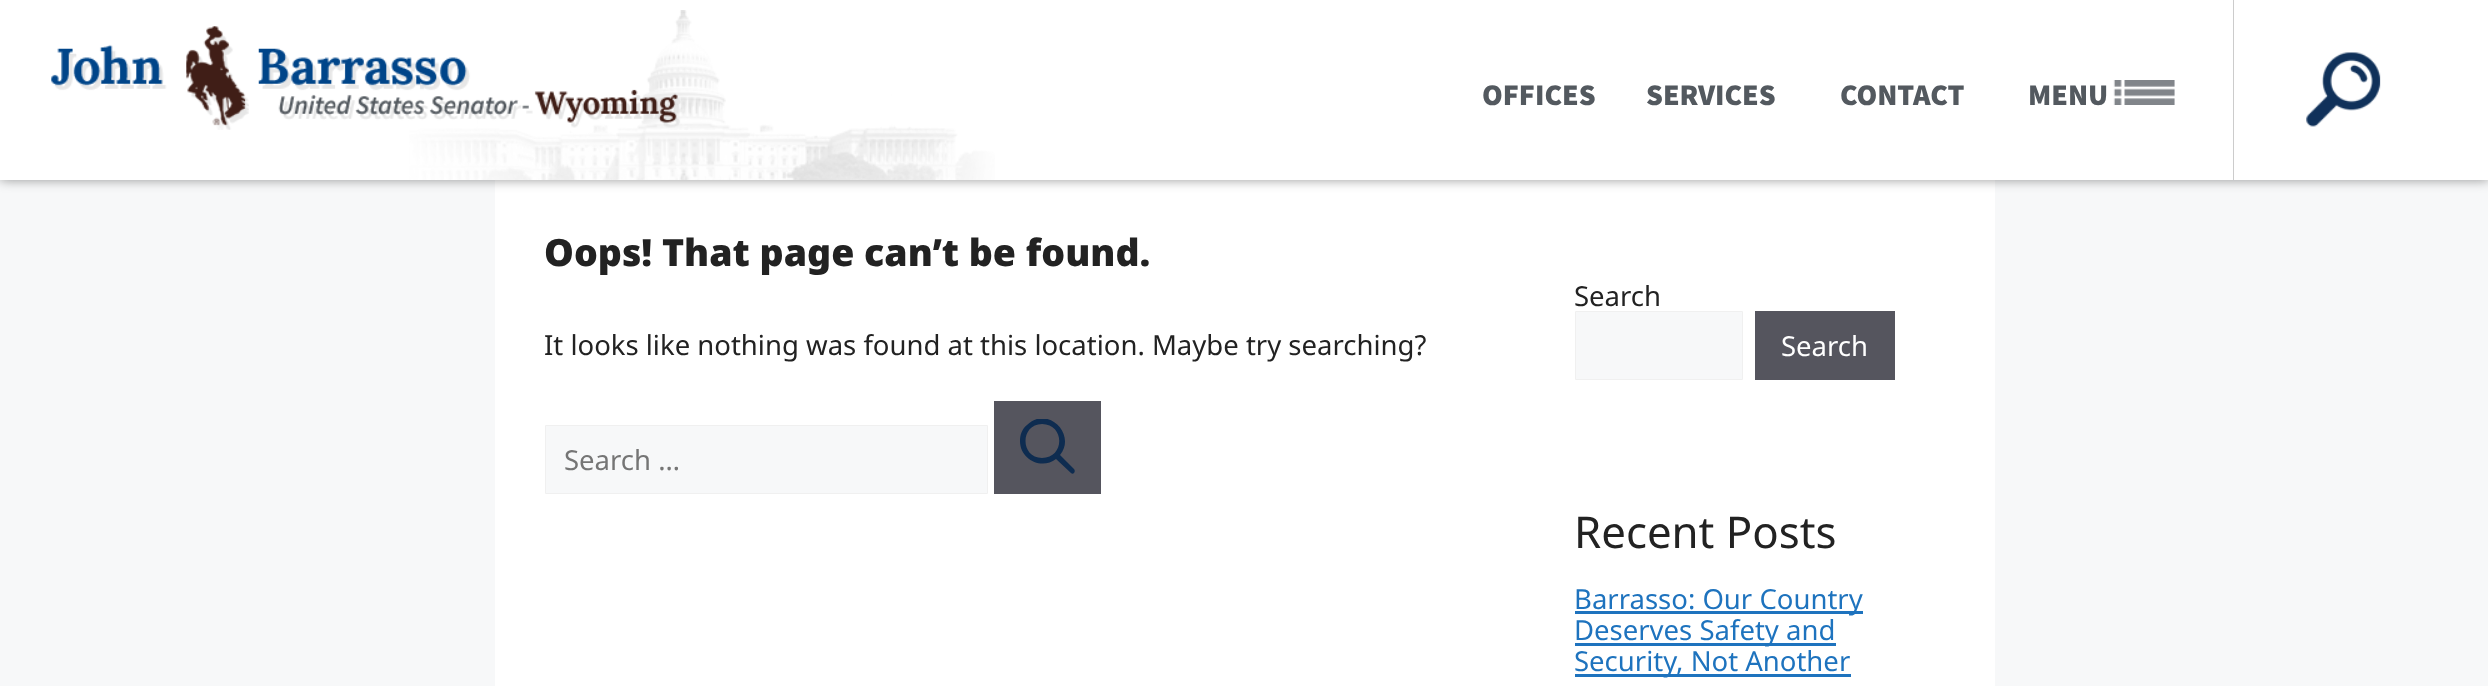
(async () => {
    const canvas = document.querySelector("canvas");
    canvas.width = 2488;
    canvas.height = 686;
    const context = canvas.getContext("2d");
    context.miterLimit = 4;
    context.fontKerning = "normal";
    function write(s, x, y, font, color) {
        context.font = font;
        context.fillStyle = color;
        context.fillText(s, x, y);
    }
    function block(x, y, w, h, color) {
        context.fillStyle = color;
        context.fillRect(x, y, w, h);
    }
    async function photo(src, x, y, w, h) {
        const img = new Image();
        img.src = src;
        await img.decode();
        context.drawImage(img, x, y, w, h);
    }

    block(0, 0, 2488, 686, "rgb(247, 248, 249)");
    block(495, 180, 1500, 506, "rgb(255, 255, 255)");
    context.fillStyle = "rgba(0, 0, 0, 0.4)";
    context.filter = "blur(6px)";
    context.beginPath();
    context.rect(0, 0, 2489, 180);
    context.fill();
    context.filter = "none";
    block(0, 0, 2488, 180, "rgb(255, 255, 255)");
    await photo("media/1.png", 409, 10, 586, 170);
    await photo("media/2.png", 51, 26, 630, 104);
    write("OFFICES", 1482, 105, "900 30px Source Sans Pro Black", "rgb(83, 89, 95)");
    write("SERVICES", 1646, 105, "900 30px Source Sans Pro Black", "rgb(83, 89, 95)");
    write("CONTACT", 1840, 105, "900 30px Source Sans Pro Black", "rgb(83, 89, 95)");
    write("MENU", 2028, 105, "900 30px Source Sans Pro Black", "rgb(83, 89, 95)");
    await photo("media/3.png", 2113, 80, 62, 25);
    block(2233, 0, 1, 180, "rgb(204, 204, 204)");
    await photo("media/4.png", 2306, 52, 75, 75);
    write("Oops! That page can’t be found.", 544, 266, "900 37.5px Noto Sans", "rgb(34, 34, 34)");
    write("It looks like nothing was found at this location. Maybe try searching?", 544, 355, "27.5px Noto Sans", "rgb(34, 34, 34)");
    context.fillStyle = "rgb(247, 248, 249)";
    context.beginPath();
    context.rect(545.5, 425.5, 442, 68);
    context.fill();
    context.strokeStyle = "rgb(240, 240, 240)";
    context.stroke();
    write("Search …", 564, 470, "27.5px Noto Sans", "rgb(117, 117, 117)");
    block(994, 401, 107, 93, "rgb(85, 85, 94)");
    context.save();
    context.beginPath();
    context.rect(1020, 419, 55, 55);
    context.clip();
    context.fillStyle = "rgb(14, 44, 80)";
    context.beginPath();
    context.moveTo(1042, 424);
    context.bezierCurveTo(1020, 424, 1020, 458, 1042, 458);
    context.bezierCurveTo(1065, 458, 1065, 424, 1042, 424);
    context.closePath();
    context.moveTo(1020, 441);
    context.bezierCurveTo(1020, 435, 1022, 429, 1027, 425);
    context.bezierCurveTo(1047, 405, 1077, 434, 1060, 455);
    context.lineTo(1074, 469);
    context.bezierCurveTo(1075, 470, 1075, 472, 1074, 473);
    context.bezierCurveTo(1073, 474, 1072, 474, 1071, 473);
    context.lineTo(1056, 459);
    context.bezierCurveTo(1042, 470, 1020, 460, 1020, 441);
    context.closePath();
    context.fill("evenodd");
    context.restore();
    write("Search", 1574, 306, "27.5px Noto Sans", "rgb(34, 34, 34)");
    context.fillStyle = "rgb(247, 248, 249)";
    context.beginPath();
    context.rect(1575.5, 311.5, 167, 68);
    context.fill();
    context.stroke();
    block(1755, 311, 140, 69, "rgb(85, 85, 94)");
    write("Search", 1781, 356, "27.5px Noto Sans", "rgb(255, 255, 255)");
    write("Recent Posts", 1574, 548, "43.75px Noto Sans", "rgb(34, 34, 34)");
    block(1575, 611, 288, 3, "rgb(30, 115, 190)");
    write("Barrasso: Our Country", 1574, 609, "27.5px Noto Sans", "rgb(30, 115, 190)");
    block(1575, 643, 261, 3, "rgb(30, 115, 190)");
    write("Deserves Safety and", 1574, 640, "27.5px Noto Sans", "rgb(30, 115, 190)");
    block(1575, 674, 276, 3, "rgb(30, 115, 190)");
    write("Security, Not Another", 1574, 671, "27.5px Noto Sans", "rgb(30, 115, 190)");
})();
